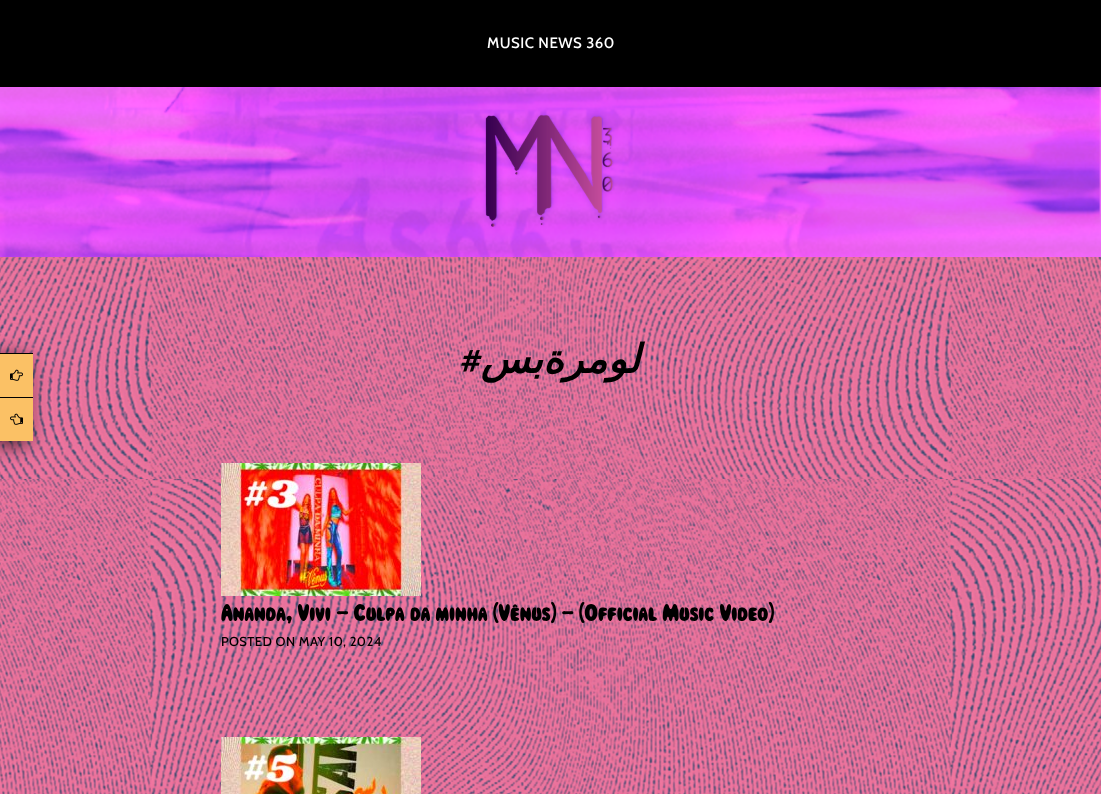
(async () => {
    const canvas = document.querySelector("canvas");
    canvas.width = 1101;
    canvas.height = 794;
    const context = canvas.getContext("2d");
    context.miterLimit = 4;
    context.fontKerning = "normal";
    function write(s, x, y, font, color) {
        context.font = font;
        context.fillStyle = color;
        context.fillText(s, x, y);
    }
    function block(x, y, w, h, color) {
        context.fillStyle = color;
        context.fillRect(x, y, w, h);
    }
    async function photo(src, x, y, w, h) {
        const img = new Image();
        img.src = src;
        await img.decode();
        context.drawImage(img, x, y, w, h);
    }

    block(0, 0, 1101, 794, "rgb(255, 255, 255)");
    await photo("media/1.png", 0, 257, 1101, 537);
    context.fillStyle = "rgba(0, 0, 0, 0.75)";
    context.filter = "blur(10px)";
    context.beginPath();
    context.rect(-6, 357, 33, 88);
    context.fill();
    context.filter = "none";
    block(0, 354, 33, 43, "rgb(251, 193, 101)");
    block(0, 353, 33, 1, "rgb(0, 0, 0)");
    block(0, 397, 33, 1, "rgb(0, 0, 0)");
    await photo("media/2.png", 10, 369, 13, 12);
    block(0, 398, 33, 43, "rgb(251, 193, 101)");
    await photo("media/3.png", 10, 413, 13, 12);
    block(0, 0, 1101, 87, "rgb(0, 0, 0)");
    context.letterSpacing = "0.5px";
    write("MUSIC NEWS 360", 487, 48, "500 15px Cabin", "rgb(255, 255, 255)");
    await photo("media/4.png", 0, 87, 1101, 170);
    context.letterSpacing = "0px";
    write("#", 461, 373, "italic bold 40px Alegreya", "rgb(0, 0, 0)");
    context.direction = "rtl";
    write("لومرةبس", 640, 373, "italic bold 40px DejaVu Sans", "rgb(0, 0, 0)");
    await photo("media/5.png", 221, 463, 200, 133);
    context.direction = "ltr";
    write("Ananda, Vivi – Culpa da minha (Vênus) – (Official Music Video)", 221, 619, "bold 18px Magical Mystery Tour", "rgb(0, 0, 0)");
    context.letterSpacing = "0.4px";
    write("POSTED ON MAY 10, 2024", 221, 646, "500 13px Cabin", "rgb(0, 0, 0)");
    await photo("media/6.png", 221, 737, 200, 57);
})();
